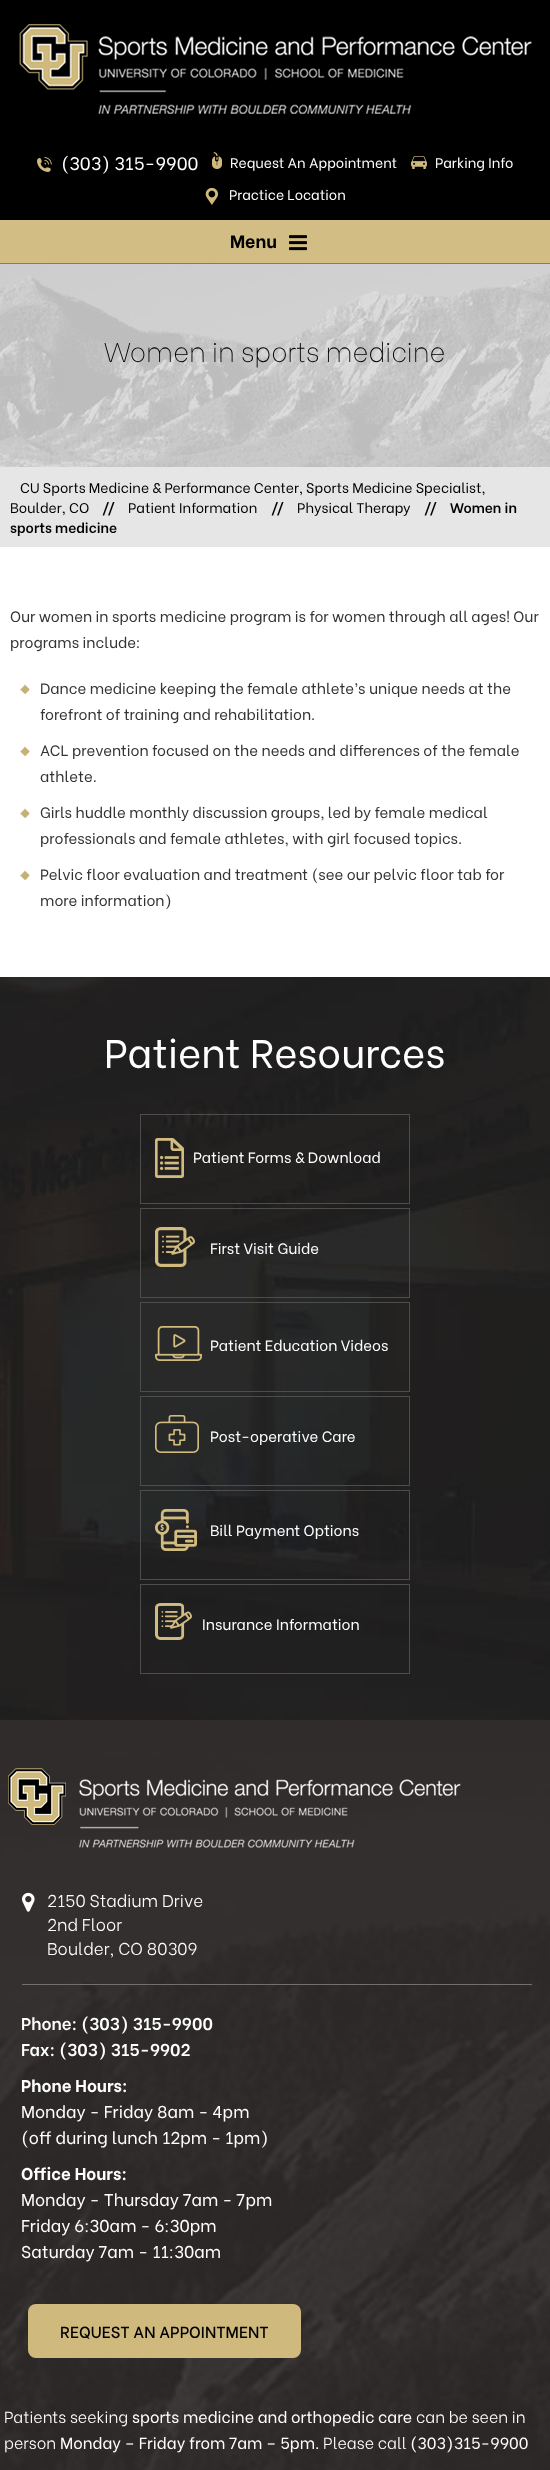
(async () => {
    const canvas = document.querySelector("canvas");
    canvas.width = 550;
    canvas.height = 2470;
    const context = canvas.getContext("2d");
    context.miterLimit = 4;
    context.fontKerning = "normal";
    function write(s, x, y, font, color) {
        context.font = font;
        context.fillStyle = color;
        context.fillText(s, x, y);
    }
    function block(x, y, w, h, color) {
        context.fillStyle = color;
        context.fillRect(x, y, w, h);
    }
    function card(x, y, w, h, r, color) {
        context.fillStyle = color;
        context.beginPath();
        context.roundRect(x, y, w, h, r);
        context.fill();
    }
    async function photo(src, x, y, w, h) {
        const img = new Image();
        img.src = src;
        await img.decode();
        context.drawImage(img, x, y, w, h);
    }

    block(0, 0, 550, 2470, "rgb(255, 255, 255)");
    block(0, 0, 550, 220, "rgb(0, 0, 0)");
    await photo("media/1.png", 19, 24, 513, 90);
    await photo("media/2.png", 37, 157, 15, 15);
    write("(303) 315-9900", 61, 170, "18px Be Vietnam", "rgb(255, 255, 255)");
    await photo("media/3.png", 212, 152, 10, 17);
    write("Request An Appointment", 230, 168, "14px Be Vietnam", "rgb(255, 255, 255)");
    await photo("media/4.png", 411, 156, 16, 13);
    write("Parking Info", 435, 168, "14px Be Vietnam", "rgb(255, 255, 255)");
    await photo("media/5.png", 205, 188, 13, 17);
    write("Practice Location", 229, 200, "14px Be Vietnam", "rgb(255, 255, 255)");
    block(0, 220, 550, 43, "rgb(210, 190, 133)");
    write("Menu", 230, 248, "bold 18px Be Vietnam", "rgb(0, 0, 0)");
    await photo("media/6.png", 289, 235, 18, 16);
    await photo("media/7.png", 0, 263, 550, 204);
    write("Women in sports medicine", 104, 362, "100 27px Be Vietnam", "rgb(0, 0, 0)");
    block(0, 467, 550, 80, "rgb(230, 230, 230)");
    write("CU Sports Medicine & Performance Center, Sports Medicine Specialist,", 20, 493, "14px Be Vietnam", "rgb(0, 0, 0)");
    write("Boulder, CO", 10, 513, "14px Be Vietnam", "rgb(0, 0, 0)");
    write("//", 102, 513, "600 14px Be Vietnam", "rgb(0, 0, 0)");
    write("Patient Information", 128, 513, "14px Be Vietnam", "rgb(0, 0, 0)");
    write("//", 271, 513, "600 14px Be Vietnam", "rgb(0, 0, 0)");
    write("Physical Therapy", 297, 513, "14px Be Vietnam", "rgb(0, 0, 0)");
    write("//", 424, 513, "600 14px Be Vietnam", "rgb(0, 0, 0)");
    write("Women in", 450, 513, "600 14px Be Vietnam", "rgb(0, 0, 0)");
    write("sports medicine", 10, 533, "600 14px Be Vietnam", "rgb(0, 0, 0)");
    write("Our women in sports medicine program is for women through all ages! Our", 10, 622, "15px Be Vietnam", "rgb(50, 51, 52)");
    write("programs include:", 10, 648, "15px Be Vietnam", "rgb(50, 51, 52)");
    await photo("media/8.png", 20, 684, 10, 10);
    write("Dance medicine keeping the female athlete’s unique needs at the", 40, 694, "15px Be Vietnam", "rgb(50, 51, 52)");
    write("forefront of training and rehabilitation.", 40, 720, "15px Be Vietnam", "rgb(50, 51, 52)");
    await photo("media/8.png", 20, 746, 10, 10);
    write("ACL prevention focused on the needs and differences of the female", 40, 756, "15px Be Vietnam", "rgb(50, 51, 52)");
    write("athlete.", 40, 782, "15px Be Vietnam", "rgb(50, 51, 52)");
    await photo("media/8.png", 20, 808, 10, 10);
    write("Girls huddle monthly discussion groups, led by female medical", 40, 818, "15px Be Vietnam", "rgb(50, 51, 52)");
    write("professionals and female athletes, with girl focused topics.", 40, 844, "15px Be Vietnam", "rgb(50, 51, 52)");
    await photo("media/8.png", 20, 870, 10, 10);
    write("Pelvic floor evaluation and treatment (see our pelvic floor tab for", 40, 880, "15px Be Vietnam", "rgb(50, 51, 52)");
    write("more information)", 40, 906, "15px Be Vietnam", "rgb(50, 51, 52)");
    await photo("media/9.png", 0, 977, 550, 743);
    write("Patient Resources", 104, 1068, "40px Be Vietnam", "rgb(255, 255, 255)");
    context.strokeStyle = "rgb(77, 77, 76)";
    context.strokeRect(140.5, 1114.5, 269, 89);
    await photo("media/10.png", 155, 1138, 29, 40);
    write("Patient Forms & Download", 193, 1163, "15px Be Vietnam", "rgb(255, 255, 255)");
    context.strokeRect(140.5, 1208.5, 269, 89);
    await photo("media/11.png", 155, 1227, 40, 40);
    write("First Visit Guide", 210, 1254, "15px Be Vietnam", "rgb(255, 255, 255)");
    context.strokeRect(140.5, 1302.5, 269, 89);
    await photo("media/12.png", 155, 1326, 47, 35);
    write("Patient Education Videos", 210, 1351, "15px Be Vietnam", "rgb(255, 255, 255)");
    context.strokeRect(140.5, 1396.5, 269, 89);
    await photo("media/13.png", 155, 1415, 44, 38);
    write("Post-operative Care", 210, 1442, "15px Be Vietnam", "rgb(255, 255, 255)");
    context.strokeRect(140.5, 1490.5, 269, 89);
    await photo("media/14.png", 155, 1509, 42, 42);
    write("Bill Payment Options", 210, 1536, "15px Be Vietnam", "rgb(255, 255, 255)");
    context.strokeRect(140.5, 1584.5, 269, 89);
    await photo("media/15.png", 155, 1603, 37, 37);
    write("Insurance Information", 202, 1630, "15px Be Vietnam", "rgb(255, 255, 255)");
    await photo("media/16.png", 0, 1720, 550, 750);
    await photo("media/17.png", 8, 1768, 453, 80);
    await photo("media/18.png", 22, 1892, 13, 20);
    write("2150 Stadium Drive", 47, 1907, "300 17px Be Vietnam", "rgb(255, 255, 255)");
    write("2nd Floor", 47, 1931, "300 17px Be Vietnam", "rgb(255, 255, 255)");
    write("Boulder, CO 80309", 47, 1955, "300 17px Be Vietnam", "rgb(255, 255, 255)");
    block(22, 1984, 510, 1, "rgb(114, 111, 111)");
    write("Phone: (303) 315-9900", 21, 2030, "600 17px Be Vietnam", "rgb(255, 255, 255)");
    write("Fax: (303) 315-9902", 21, 2056, "600 17px Be Vietnam", "rgb(255, 255, 255)");
    write("Phone Hours:", 21, 2092, "bold 17px Be Vietnam", "rgb(255, 255, 255)");
    write("Monday - Friday 8am - 4pm", 21, 2118, "17px Be Vietnam", "rgb(255, 255, 255)");
    write("(off during lunch 12pm - 1pm)", 21, 2144, "17px Be Vietnam", "rgb(255, 255, 255)");
    write("Office Hours:", 21, 2180, "bold 17px Be Vietnam", "rgb(255, 255, 255)");
    write("Monday - Thursday 7am - 7pm", 21, 2206, "17px Be Vietnam", "rgb(255, 255, 255)");
    write("Friday 6:30am - 6:30pm", 21, 2232, "17px Be Vietnam", "rgb(255, 255, 255)");
    write("Saturday 7am - 11:30am", 21, 2258, "17px Be Vietnam", "rgb(255, 255, 255)");
    card(28, 2304, 273, 54, 8, "rgb(207, 185, 125)");
    write("REQUEST AN APPOINTMENT", 60, 2338, "500 16px Be Vietnam", "rgb(0, 0, 0)");
    write("Patients seeking", 4, 2423, "300 16px Be Vietnam", "rgb(255, 255, 255)");
    write("sports medicine and orthopedic care", 132, 2423, "16px Be Vietnam", "rgb(255, 255, 255)");
    write("can be seen in", 416, 2423, "300 16px Be Vietnam", "rgb(255, 255, 255)");
    write("person", 4, 2449, "300 16px Be Vietnam", "rgb(255, 255, 255)");
    write("Monday – Friday from 7am – 5pm.", 60, 2449, "16px Be Vietnam", "rgb(255, 255, 255)");
    write("Please call", 323, 2449, "300 16px Be Vietnam", "rgb(255, 255, 255)");
    write("(303)315-9900", 410, 2449, "16px Be Vietnam", "rgb(255, 255, 255)");
})();
